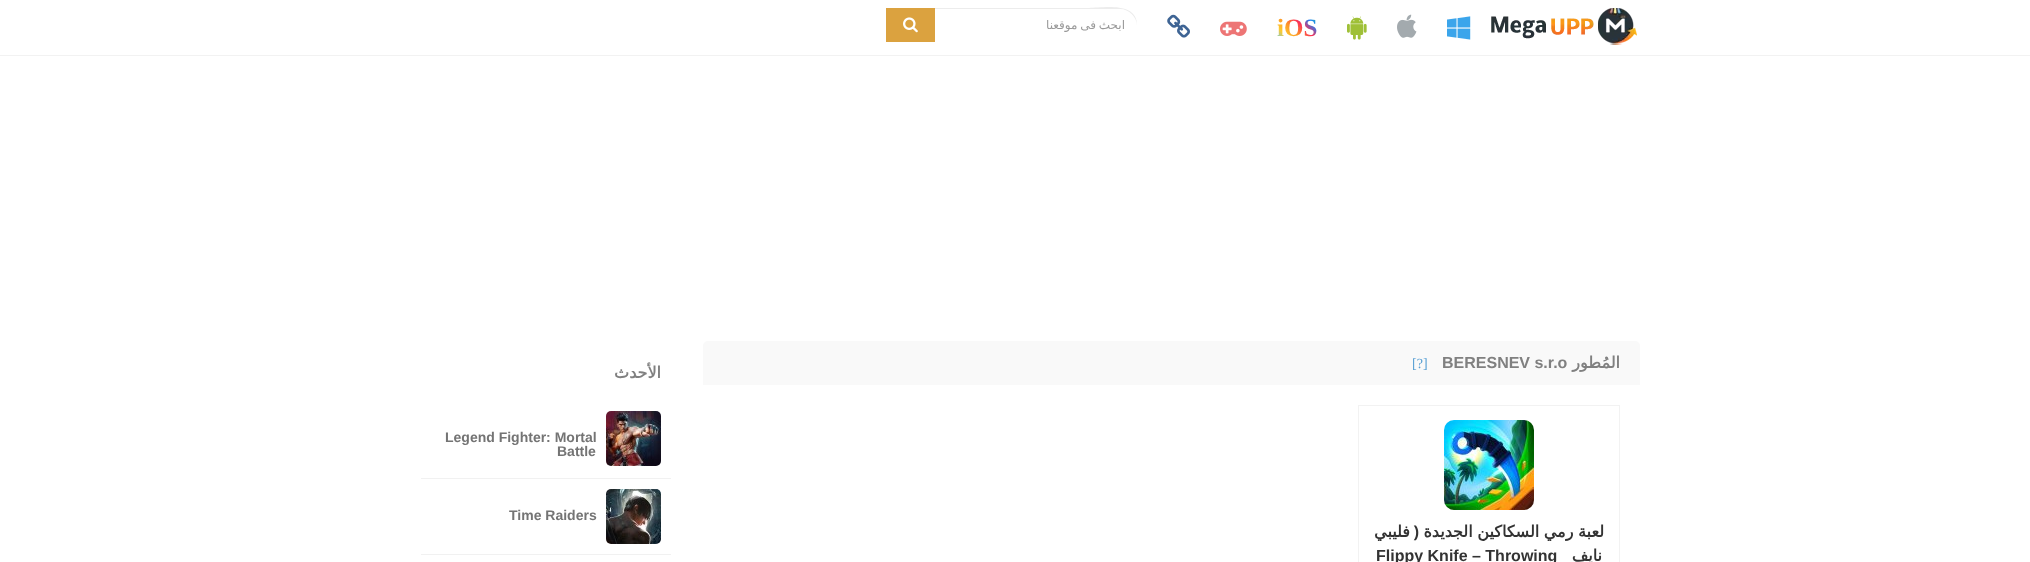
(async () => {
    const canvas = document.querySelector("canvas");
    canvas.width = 2030;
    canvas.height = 562;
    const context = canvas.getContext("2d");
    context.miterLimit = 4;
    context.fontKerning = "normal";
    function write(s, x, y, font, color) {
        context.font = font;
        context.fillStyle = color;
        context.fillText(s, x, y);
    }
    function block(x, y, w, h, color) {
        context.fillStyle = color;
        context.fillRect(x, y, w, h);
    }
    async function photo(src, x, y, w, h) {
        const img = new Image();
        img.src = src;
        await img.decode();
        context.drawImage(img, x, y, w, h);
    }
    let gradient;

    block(0, 0, 2030, 562, "rgb(255, 255, 255)");
    block(0, 55, 2030, 1, "rgb(242, 242, 242)");
    block(886, 8, 49, 34, "rgb(219, 162, 63)");
    await photo("media/1.png", 903, 17, 15, 16);
    context.fillStyle = "rgb(236, 236, 236)";
    context.beginPath();
    context.moveTo(935, 9);
    context.lineTo(1120, 9);
    context.bezierCurveTo(1129, 9, 1137, 17, 1137, 26);
    context.bezierCurveTo(1138, 1, 1102, 8, 1089, 8);
    context.lineTo(935, 8);
    context.closePath();
    context.fill();
    context.wordSpacing = "-1px";
    context.direction = "rtl";
    write("ابحث فى موقعنا", 1125, 29, "12px DejaVu Sans", "rgb(153, 153, 153)");
    await photo("media/2.png", 1167, 14, 23, 24);
    await photo("media/3.png", 1220, 21, 27, 15);
    context.wordSpacing = "0px";
    context.direction = "ltr";
    context.font = "bold 25px Liberation Serif";
    gradient = context.createLinearGradient(1281, 44, 1314, 11);
    gradient.addColorStop(0, "rgb(95, 201, 248)");
    gradient.addColorStop(0.2, "rgb(254, 203, 46)");
    gradient.addColorStop(0.4, "rgb(253, 148, 38)");
    gradient.addColorStop(0.6, "rgb(252, 49, 88)");
    gradient.addColorStop(0.8, "rgb(20, 126, 251)");
    gradient.addColorStop(1, "rgb(83, 215, 105)");
    context.fillStyle = gradient;
    context.fillText("iOS", 1277, 36);
    await photo("media/4.png", 1347, 16, 20, 24);
    await photo("media/5.png", 1397, 14, 20, 24);
    await photo("media/6.png", 1447, 16, 24, 24);
    await photo("media/7.png", 1491, 8, 146, 37);
    context.direction = "rtl";
    write("الأحدث", 661, 378, "bold 16px DejaVu Sans", "rgb(128, 128, 128)");
    block(421, 478, 250, 1, "rgb(241, 241, 241)");
    context.direction = "ltr";
    write("Legend Fighter: Mortal", 445, 442, "bold 14px Liberation Sans", "rgb(116, 116, 116)");
    write("Battle", 557, 456, "bold 14px Liberation Sans", "rgb(116, 116, 116)");
    await photo("media/8.png", 606, 411, 55, 55);
    block(421, 554, 250, 1, "rgb(241, 241, 241)");
    write("Time Raiders", 509, 520, "bold 14px Liberation Sans", "rgb(116, 116, 116)");
    await photo("media/9.png", 606, 489, 55, 55);
    context.fillStyle = "rgb(249, 249, 249)";
    context.beginPath();
    context.roundRect(703, 341, 937, 44, [5, 5, 0, 0]);
    context.fill();
    write("[?]", 1412, 368, "14px Liberation Serif", "rgb(89, 160, 212)");
    write("BERESNEV s.r.o", 1442, 368, "bold 16px Liberation Sans", "rgb(128, 128, 128)");
    context.direction = "rtl";
    write("المُطور", 1620, 368, "bold 16px DejaVu Sans", "rgb(128, 128, 128)");
    context.strokeStyle = "rgb(242, 242, 242)";
    context.strokeRect(1358.5, 405.5, 261, 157);
    await photo("media/10.png", 1444, 420, 90, 90);
    write("فليبي", 1410, 537, "bold 16px DejaVu Sans", "rgb(51, 51, 51)");
    write("(", 1419, 537, "bold 16px Liberation Sans", "rgb(51, 51, 51)");
    context.wordSpacing = "-0.5px";
    write("لعبة رمي السكاكين الجديدة", 1604, 537, "bold 16px DejaVu Sans", "rgb(51, 51, 51)");
    context.wordSpacing = "0px";
    context.direction = "ltr";
    write("Flippy Knife – Throwing", 1376, 561, "bold 16px Liberation Sans", "rgb(51, 51, 51)");
    context.direction = "rtl";
    write("نايف", 1602, 561, "bold 16px DejaVu Sans", "rgb(51, 51, 51)");
})();
